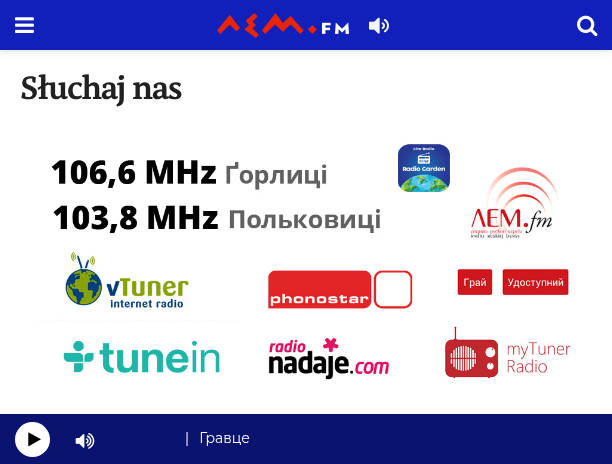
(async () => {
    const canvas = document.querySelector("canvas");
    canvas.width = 612;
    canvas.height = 464;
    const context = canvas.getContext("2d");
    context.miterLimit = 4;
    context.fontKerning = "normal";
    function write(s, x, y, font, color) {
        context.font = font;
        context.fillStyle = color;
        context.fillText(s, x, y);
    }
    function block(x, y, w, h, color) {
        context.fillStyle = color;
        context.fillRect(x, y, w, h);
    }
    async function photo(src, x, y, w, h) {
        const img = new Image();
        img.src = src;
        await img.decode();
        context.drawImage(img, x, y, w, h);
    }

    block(0, 0, 612, 464, "rgb(255, 255, 255)");
    context.fillStyle = "rgba(0, 0, 0, 0.1)";
    context.filter = "blur(3px)";
    context.beginPath();
    context.rect(0, 2, 612, 50);
    context.fill();
    context.filter = "none";
    block(0, 0, 612, 50, "rgb(17, 32, 187)");
    await photo("media/1.png", 15, 17, 19, 16);
    await photo("media/2.png", 217, 13, 132, 25);
    await photo("media/3.png", 369, 17, 20, 17);
    await photo("media/4.png", 577, 15, 21, 22);
    context.letterSpacing = "-1.25px";
    write("Słuchaj nas", 20, 99, "bold 32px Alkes", "rgb(33, 33, 33)");
    await photo("media/5.png", 20, 127, 572, 271);
    await photo("media/6.png", 0, 414, 612, 50);
})();
